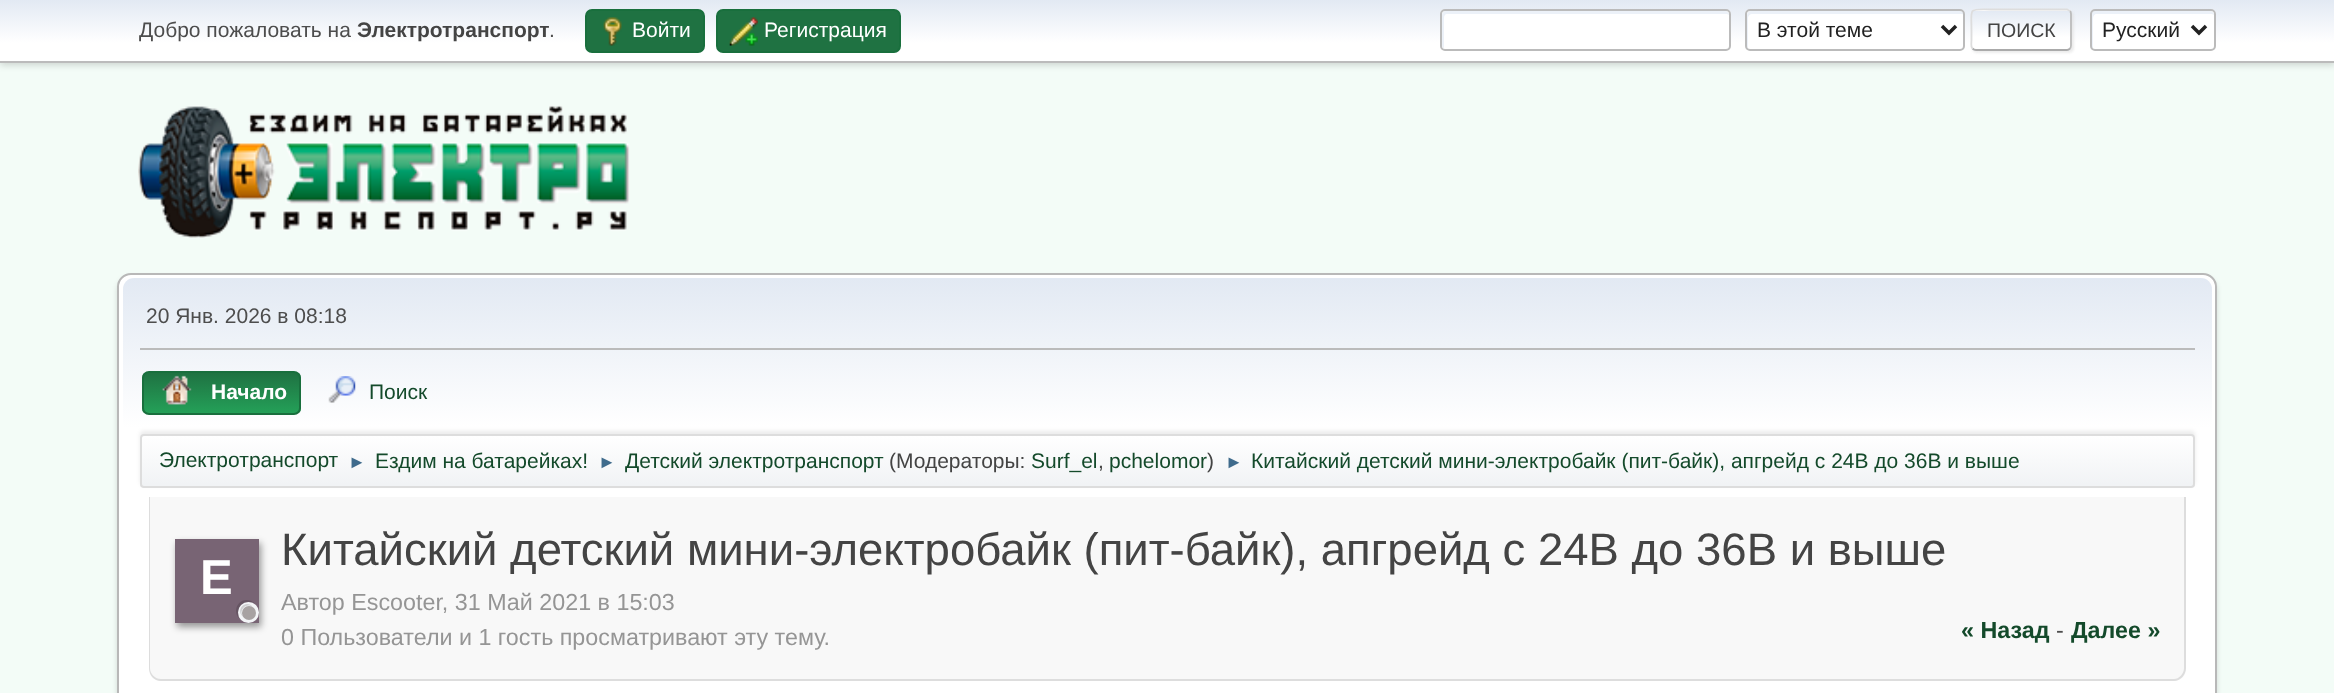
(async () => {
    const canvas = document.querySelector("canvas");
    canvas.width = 2334;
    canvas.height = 693;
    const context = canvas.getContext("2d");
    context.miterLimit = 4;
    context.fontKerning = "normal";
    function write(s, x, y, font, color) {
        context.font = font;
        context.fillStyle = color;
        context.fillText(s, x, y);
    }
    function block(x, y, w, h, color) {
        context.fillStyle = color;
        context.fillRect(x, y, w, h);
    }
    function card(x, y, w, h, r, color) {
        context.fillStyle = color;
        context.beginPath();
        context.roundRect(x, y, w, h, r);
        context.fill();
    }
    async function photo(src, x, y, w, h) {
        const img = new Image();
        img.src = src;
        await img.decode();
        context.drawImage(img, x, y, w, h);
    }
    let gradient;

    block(0, 0, 2334, 693, "rgb(243, 252, 247)");
    context.fillStyle = "rgba(0, 0, 0, 0.16)";
    context.filter = "blur(3.5px)";
    context.beginPath();
    context.rect(0, 2, 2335, 63);
    context.fill();
    context.filter = "none";
    gradient = context.createLinearGradient(1167, 0, 1167, 61);
    gradient.addColorStop(0, "rgb(226, 233, 243)");
    gradient.addColorStop(0.7, "rgb(255, 255, 255)");
    context.fillStyle = gradient;
    context.fillRect(0, 0, 2334, 61);
    block(0, 61, 2334, 2, "rgb(187, 187, 187)");
    write("Добро пожаловать на", 139, 37, "21px Liberation Sans", "rgb(77, 77, 77)");
    write("Электротранспорт", 357, 37, "bold 21px Liberation Sans", "rgb(68, 68, 68)");
    write(".", 549, 37, "21px Liberation Sans", "rgb(77, 77, 77)");
    context.fillStyle = "rgb(31, 114, 66)";
    context.beginPath();
    context.roundRect(586, 10, 118, 42, 6);
    context.fill();
    context.strokeStyle = "rgb(25, 111, 61)";
    context.lineWidth = 2;
    context.stroke();
    await photo("media/1.png", 603, 17, 19, 29);
    write("Войти", 632, 37, "21px Liberation Sans", "rgb(255, 255, 255)");
    context.fillStyle = "rgb(31, 114, 66)";
    context.beginPath();
    context.roundRect(717, 10, 183, 42, 6);
    context.fill();
    context.stroke();
    await photo("media/2.png", 729, 17, 29, 29);
    write("Регистрация", 764, 37, "21px Liberation Sans", "rgb(255, 255, 255)");
    card(1440, 9, 291, 42, 5, "rgb(255, 255, 255)");
    context.fillStyle = "rgb(236, 241, 248)";
    context.beginPath();
    context.moveTo(1447, 14);
    context.lineTo(1727, 14);
    context.lineTo(1729, 15);
    context.bezierCurveTo(1729, 13, 1727, 11, 1725, 11);
    context.lineTo(1446, 11);
    context.bezierCurveTo(1444, 11, 1442, 13, 1442, 15);
    context.lineTo(1442, 45);
    context.bezierCurveTo(1442, 46, 1443, 48, 1444, 48);
    context.lineTo(1444, 18);
    context.bezierCurveTo(1444, 16, 1445, 14, 1447, 14);
    context.closePath();
    context.fill();
    context.beginPath();
    context.roundRect(1441, 10, 289, 40, 4);
    context.strokeStyle = "rgb(187, 187, 187)";
    context.stroke();
    card(1745, 9, 220, 42, 5, "rgb(255, 255, 255)");
    context.fillStyle = "rgb(236, 241, 248)";
    context.beginPath();
    context.moveTo(1752, 14);
    context.lineTo(1962, 14);
    context.lineTo(1964, 15);
    context.bezierCurveTo(1964, 13, 1962, 11, 1960, 11);
    context.lineTo(1751, 11);
    context.bezierCurveTo(1749, 11, 1747, 13, 1747, 15);
    context.lineTo(1747, 45);
    context.bezierCurveTo(1747, 46, 1747, 47, 1748, 48);
    context.lineTo(1748, 18);
    context.bezierCurveTo(1748, 16, 1750, 14, 1752, 14);
    context.closePath();
    context.fill();
    context.beginPath();
    context.roundRect(1746, 10, 218, 40, 4);
    context.stroke();
    context.beginPath();
    context.moveTo(1942, 26);
    context.lineTo(1949, 33);
    context.lineTo(1956, 26);
    context.strokeStyle = "rgb(34, 34, 34)";
    context.lineWidth = 3.5;
    context.stroke();
    write("В этой теме", 1757, 37, "21px Liberation Sans", "rgb(34, 34, 34)");
    context.fillStyle = "rgba(221, 221, 221, 0.57)";
    context.filter = "blur(1px)";
    context.beginPath();
    context.roundRect(1972, 11, 102, 42, 5);
    context.fill();
    context.filter = "none";
    context.save();
    context.beginPath();
    context.roundRect(1971, 9, 101, 42, 5);
    context.clip();
    gradient = context.createLinearGradient(2021, -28, 2021, 11);
    gradient.addColorStop(0, "rgb(226, 233, 243)");
    gradient.addColorStop(0.7, "rgb(255, 255, 255)");
    context.fillStyle = gradient;
    context.fillRect(1971, 9, 101, 2);
    gradient = context.createLinearGradient(2021, 10, 2021, 49);
    gradient.addColorStop(0, "rgb(226, 233, 243)");
    gradient.addColorStop(0.7, "rgb(255, 255, 255)");
    context.fillStyle = gradient;
    context.fillRect(1971, 11, 101, 38);
    gradient = context.createLinearGradient(2021, 49, 2021, 88);
    gradient.addColorStop(0, "rgb(226, 233, 243)");
    gradient.addColorStop(0.7, "rgb(255, 255, 255)");
    context.fillStyle = gradient;
    context.fillRect(1971, 49, 101, 2);
    context.restore();
    context.beginPath();
    context.moveTo(2070, 11);
    context.bezierCurveTo(2070.5, 11.5, 2071, 13, 2071, 14);
    context.lineTo(2071, 45.5);
    context.bezierCurveTo(2071, 46.5, 2070.5, 48, 2070, 48.5);
    context.strokeStyle = "rgb(187, 187, 187)";
    context.lineWidth = 1.8;
    context.stroke();
    context.beginPath();
    context.moveTo(2070, 48.5);
    context.bezierCurveTo(2069, 49.5, 2068, 50, 2067, 50);
    context.lineTo(1976, 50);
    context.bezierCurveTo(1974.5, 50, 1973.5, 49.5, 1972.5, 48.5);
    context.strokeStyle = "rgb(170, 170, 170)";
    context.stroke();
    context.beginPath();
    context.moveTo(1972.5, 48.5);
    context.bezierCurveTo(1970.5, 46.5, 1971.5, 42.5, 1971.5, 40);
    context.lineTo(1971.5, 30);
    context.bezierCurveTo(1971.5, 7, 1967.5, 9.5, 1991, 9.5);
    context.lineTo(2067, 9.5);
    context.lineTo(2070, 11);
    context.strokeStyle = "rgb(221, 221, 221)";
    context.stroke();
    write("ПОИСК", 1987, 37, "19.5px Liberation Sans", "rgb(68, 68, 68)");
    card(2090, 9, 126, 42, 5, "rgb(255, 255, 255)");
    context.fillStyle = "rgb(236, 241, 248)";
    context.beginPath();
    context.moveTo(2096, 14);
    context.lineTo(2212, 14);
    context.lineTo(2214, 15);
    context.bezierCurveTo(2214, 13, 2212, 11, 2210, 11);
    context.lineTo(2095, 11);
    context.bezierCurveTo(2093, 11, 2091, 13, 2091, 15);
    context.lineTo(2091, 45);
    context.bezierCurveTo(2091, 46, 2092, 48, 2093, 48);
    context.lineTo(2093, 18);
    context.bezierCurveTo(2093, 16, 2095, 14, 2096, 14);
    context.closePath();
    context.fill();
    context.beginPath();
    context.roundRect(2091, 10, 124, 40, 4);
    context.strokeStyle = "rgb(187, 187, 187)";
    context.lineWidth = 2;
    context.stroke();
    context.beginPath();
    context.moveTo(2192, 26);
    context.lineTo(2199, 33);
    context.lineTo(2206, 26);
    context.strokeStyle = "rgb(34, 34, 34)";
    context.lineWidth = 3.5;
    context.stroke();
    write("Русский", 2102, 37, "21px Liberation Sans", "rgb(34, 34, 34)");
    await photo("media/3.png", 138, 105, 492, 133);
    context.fillStyle = "rgba(0, 0, 0, 0.14)";
    context.filter = "blur(2.5px)";
    context.beginPath();
    context.roundRect(117, 277, 2100, 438, 14);
    context.fill();
    context.filter = "none";
    context.fillStyle = "rgb(255, 255, 255)";
    context.beginPath();
    context.roundRect(118, 274, 2098, 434, 13);
    context.fill();
    context.strokeStyle = "rgb(184, 184, 184)";
    context.lineWidth = 2;
    context.stroke();
    gradient = context.createLinearGradient(1167, 278, 1167, 492);
    gradient.addColorStop(0, "rgb(226, 233, 243)");
    gradient.addColorStop(0.7, "rgb(255, 255, 255)");
    context.fillStyle = gradient;
    context.beginPath();
    context.roundRect(123, 278, 2089, 214, [11, 11, 0, 0]);
    context.fill();
    block(140, 348, 2055, 2, "rgb(187, 187, 187)");
    write("20 Янв. 2026 в 08:18", 146, 323, "21px Liberation Sans", "rgb(77, 77, 77)");
    context.save();
    context.beginPath();
    context.roundRect(142, 371, 159, 44, 7);
    context.clip();
    gradient = context.createLinearGradient(221, 373, 221, 413);
    gradient.addColorStop(0, "rgb(31, 114, 66)");
    gradient.addColorStop(1, "rgb(36, 160, 88)");
    context.fillStyle = gradient;
    context.fillRect(142, 373, 159, 40);
    context.restore();
    context.beginPath();
    context.roundRect(143, 372, 157, 42, 6);
    context.strokeStyle = "rgb(25, 111, 61)";
    context.stroke();
    await photo("media/4.png", 162, 375, 30, 30);
    write("Начало", 211, 399, "bold 21px Liberation Sans", "rgb(255, 255, 255)");
    await photo("media/5.png", 328, 376, 28, 27);
    write("Поиск", 369, 399, "21px Liberation Sans", "rgb(20, 74, 43)");
    context.fillStyle = "rgba(0, 0, 0, 0.08)";
    context.filter = "blur(2px)";
    context.beginPath();
    context.roundRect(140, 431, 2055, 54, 4);
    context.fill();
    context.filter = "none";
    context.save();
    context.beginPath();
    context.roundRect(140, 434, 2055, 54, 4);
    context.clip();
    gradient = context.createLinearGradient(1167, 436, 1167, 487);
    gradient.addColorStop(0, "rgb(255, 255, 255)");
    gradient.addColorStop(0.95, "rgb(241, 243, 245)");
    context.fillStyle = gradient;
    context.fillRect(140, 436, 2055, 51);
    context.restore();
    context.beginPath();
    context.roundRect(141, 435, 2053, 52, 3);
    context.strokeStyle = "rgb(221, 221, 221)";
    context.stroke();
    write("Электротранспорт", 159, 467, "21px Liberation Sans", "rgb(20, 74, 43)");
    write("►", 348, 468, "18px Liberation Sans", "rgb(63, 107, 140)");
    write("Ездим на батарейках!", 375, 468, "21px Liberation Sans", "rgb(20, 74, 43)");
    write("►", 598, 468, "18px Liberation Sans", "rgb(63, 107, 140)");
    write("Детский электротранспорт", 625, 468, "21px Liberation Sans", "rgb(20, 74, 43)");
    write("(Модераторы:", 889, 468, "21px Liberation Sans", "rgb(68, 68, 68)");
    write("Surf_el", 1031, 468, "21px Liberation Sans", "rgb(20, 74, 43)");
    write(",", 1098, 468, "21px Liberation Sans", "rgb(68, 68, 68)");
    write("pchelomor", 1109, 468, "21px Liberation Sans", "rgb(20, 74, 43)");
    write(")", 1207, 468, "21px Liberation Sans", "rgb(68, 68, 68)");
    write("►", 1225, 468, "18px Liberation Sans", "rgb(63, 107, 140)");
    write("Китайский детский мини-электробайк (пит-байк), апгрейд с 24В до 36В и выше", 1251, 468, "21px Liberation Sans", "rgb(20, 74, 43)");
    context.fillStyle = "rgb(248, 248, 248)";
    context.beginPath();
    context.roundRect(149, 497, 2037, 184, [0, 0, 12, 12]);
    context.fill();
    context.fillStyle = "rgb(221, 221, 221)";
    context.beginPath();
    context.moveTo(149, 497);
    context.lineTo(2186, 497);
    context.lineTo(2186, 668);
    context.bezierCurveTo(2186, 675, 2180, 681, 2174, 681);
    context.lineTo(161, 681);
    context.bezierCurveTo(154, 681, 149, 675, 149, 668);
    context.closePath();
    context.moveTo(150, 497);
    context.lineTo(2184, 497);
    context.lineTo(2184, 668);
    context.bezierCurveTo(2184, 674, 2179, 679, 2174, 679);
    context.lineTo(161, 679);
    context.bezierCurveTo(155, 679, 150, 674, 150, 668);
    context.closePath();
    context.fill("evenodd");
    context.fillStyle = "rgba(0, 0, 0, 0.4)";
    context.filter = "blur(3.5px)";
    context.beginPath();
    context.rect(177, 543, 84, 84);
    context.fill();
    context.filter = "none";
    block(175, 539, 84, 84, "rgb(120, 100, 116)");
    write("E", 200, 594, "bold 49px Liberation Sans", "rgb(255, 255, 255)");
    context.fillStyle = "rgb(102, 85, 99)";
    context.beginPath();
    context.moveTo(246.5, 600);
    context.bezierCurveTo(236.5, 600, 232.5, 613, 240, 619);
    context.bezierCurveTo(233, 609.5, 245.5, 597, 255, 604);
    context.bezierCurveTo(253, 601.5, 250, 600, 246.5, 600);
    context.closePath();
    context.fill();
    context.fillStyle = "rgb(243, 245, 247)";
    context.beginPath();
    context.arc(248.5, 612.5, 10.5, 0, Math.PI * 2);
    context.fill();
    context.fillStyle = "rgb(207, 208, 210)";
    context.beginPath();
    context.moveTo(247, 604);
    context.bezierCurveTo(240.5, 604, 237.5, 613, 243, 616.5);
    context.bezierCurveTo(238, 610.5, 246.5, 602, 252.5, 607);
    context.bezierCurveTo(251.5, 605, 249.5, 604, 247, 604);
    context.closePath();
    context.fill();
    context.fillStyle = "rgb(167, 162, 162)";
    context.beginPath();
    context.arc(249, 613, 7, 0, Math.PI * 2);
    context.fill();
    write("Китайский детский мини-электробайк (пит-байк), апгрейд с 24В до 36В и выше", 281, 565, "45.5px Liberation Sans", "rgb(68, 68, 68)");
    write("Автор Escooter, 31 Май 2021 в 15:03", 281, 610, "23.3px Liberation Sans", "rgb(149, 149, 149)");
    write("0 Пользователи и 1 гость просматривают эту тему.", 281, 645, "23.3px Liberation Sans", "rgb(149, 149, 149)");
    write("« Назад", 1961, 638, "bold 23.3px Liberation Sans", "rgb(20, 74, 43)");
    write("-", 2056, 638, "23.3px Liberation Sans", "rgb(77, 77, 77)");
    write("Далее »", 2071, 638, "bold 23.3px Liberation Sans", "rgb(20, 74, 43)");
})();
